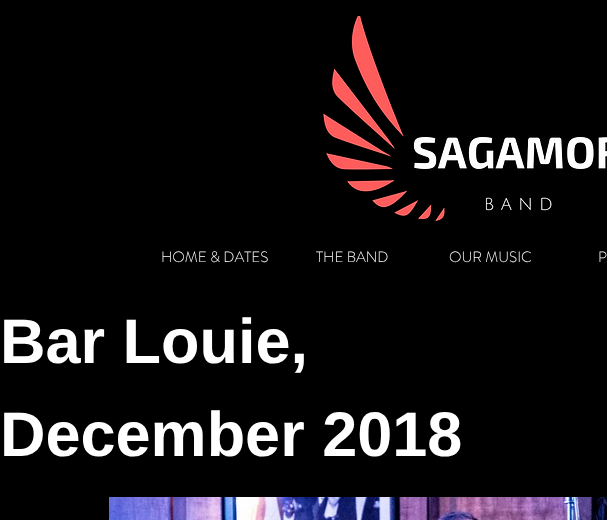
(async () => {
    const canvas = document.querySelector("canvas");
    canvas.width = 607;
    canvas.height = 520;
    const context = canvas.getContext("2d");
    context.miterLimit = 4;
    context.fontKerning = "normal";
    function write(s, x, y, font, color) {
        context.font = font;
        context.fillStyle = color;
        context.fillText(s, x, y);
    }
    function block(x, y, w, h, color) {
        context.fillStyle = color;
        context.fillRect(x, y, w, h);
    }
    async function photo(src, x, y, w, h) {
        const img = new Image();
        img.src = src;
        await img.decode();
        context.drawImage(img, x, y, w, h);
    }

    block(0, 0, 607, 520, "rgb(0, 0, 0)");
    await photo("media/1.png", 323, 16, 284, 206);
    write("HOME & DATES", 161, 262, "300 15px 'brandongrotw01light'", "rgb(255, 255, 255)");
    write("THE BAND", 316, 262, "300 15px 'brandongrotw01light'", "rgb(255, 255, 255)");
    write("OUR MUSIC", 449, 262, "300 15px 'brandongrotw01light'", "rgb(255, 255, 255)");
    write("P", 598, 262, "300 15px 'brandongrotw01light'", "rgb(255, 255, 255)");
    write("Bar Louie,", 0, 363, "bold 63px Liberation Sans", "rgb(255, 255, 255)");
    write("December 2018", 0, 456, "bold 63px Liberation Sans", "rgb(255, 255, 255)");
    await photo("media/2.png", 109, 497, 498, 23);
})();
